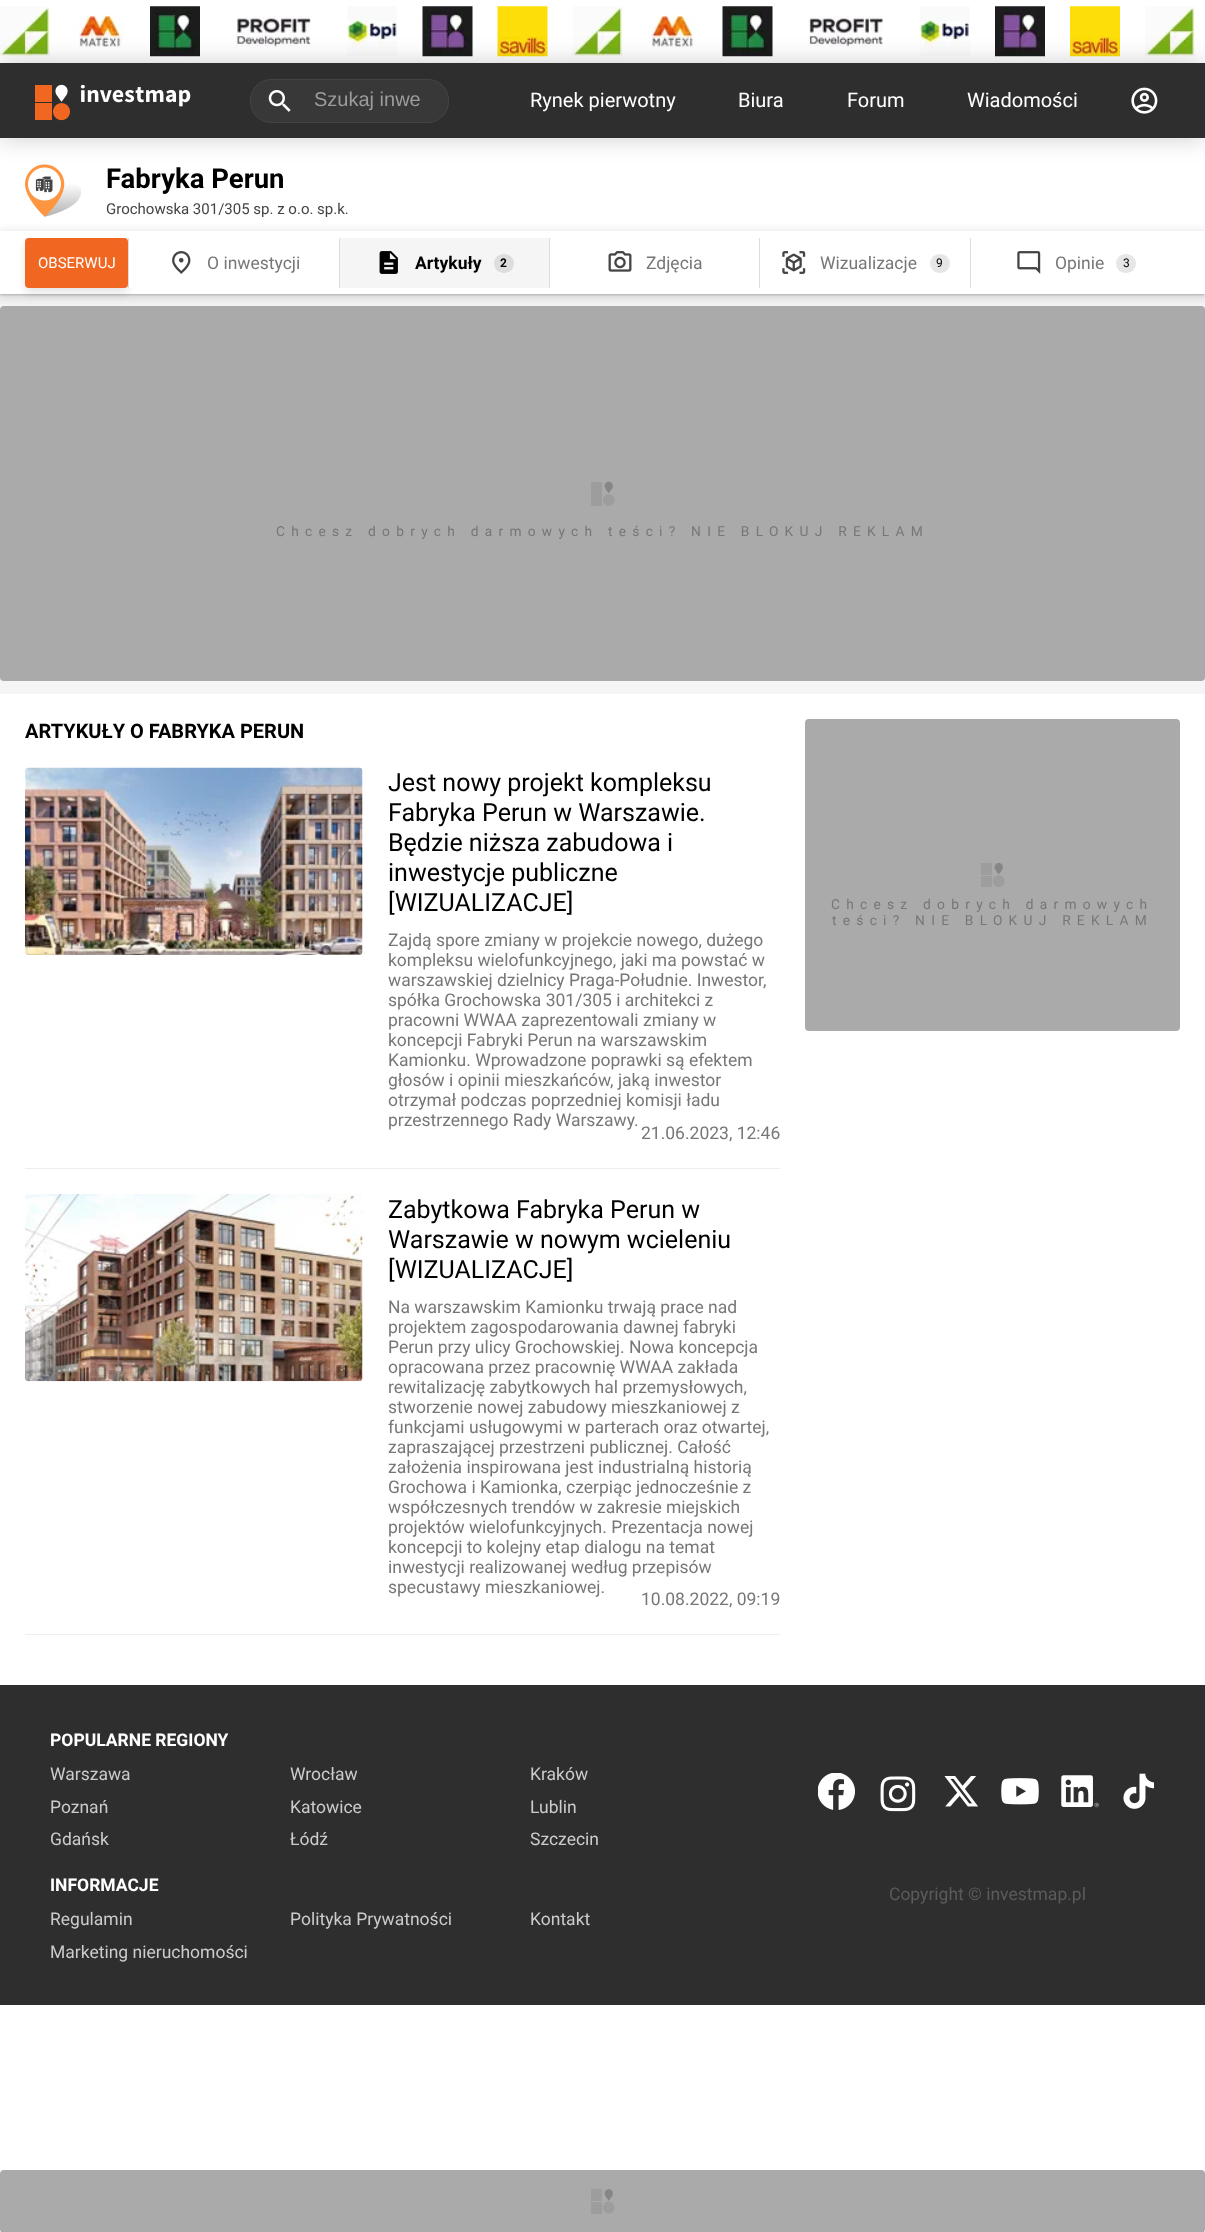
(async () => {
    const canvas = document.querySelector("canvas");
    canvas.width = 1205;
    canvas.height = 2232;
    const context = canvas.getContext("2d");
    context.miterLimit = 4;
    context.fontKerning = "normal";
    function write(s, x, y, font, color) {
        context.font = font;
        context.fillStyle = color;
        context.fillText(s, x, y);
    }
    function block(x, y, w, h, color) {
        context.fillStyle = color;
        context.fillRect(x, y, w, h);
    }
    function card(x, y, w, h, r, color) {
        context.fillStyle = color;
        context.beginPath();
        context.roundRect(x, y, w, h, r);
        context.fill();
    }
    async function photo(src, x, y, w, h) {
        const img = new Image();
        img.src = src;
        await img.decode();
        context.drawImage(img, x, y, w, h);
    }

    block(0, 0, 1205, 2232, "rgb(255, 255, 255)");
    await photo("media/1.png", 0, 6, 50, 51);
    await photo("media/2.png", 75, 15, 50, 32);
    await photo("media/3.png", 150, 6, 50, 51);
    await photo("media/4.png", 235, 16, 76, 31);
    await photo("media/5.png", 347, 6, 50, 50);
    await photo("media/6.png", 422, 6, 51, 51);
    await photo("media/7.png", 497, 6, 51, 51);
    await photo("media/8.png", 572, 6, 51, 51);
    await photo("media/9.png", 648, 15, 49, 32);
    await photo("media/10.png", 722, 6, 51, 51);
    await photo("media/11.png", 808, 16, 75, 31);
    await photo("media/12.png", 920, 6, 50, 50);
    await photo("media/13.png", 995, 6, 50, 51);
    await photo("media/14.png", 1070, 6, 50, 51);
    await photo("media/15.png", 1145, 6, 50, 51);
    await photo("media/19.png", 25, 164, 56, 53);
    context.fillStyle = "rgba(0, 0, 0, 0.2)";
    context.filter = "blur(12.5px)";
    context.beginPath();
    context.rect(0, 63, 1205, 75);
    context.fill();
    context.filter = "none";
    block(0, 63, 1205, 75, "rgb(46, 46, 46)");
    await photo("media/16.png", 35, 84, 156, 37);
    context.fillStyle = "rgb(56, 56, 56)";
    context.beginPath();
    context.roundRect(250.5, 79.5, 198, 43, 20.5);
    context.fill();
    context.strokeStyle = "rgb(68, 68, 68)";
    context.stroke();
    await photo("media/17.png", 268, 90, 23, 22);
    write("Szukaj inwe", 314, 106, "20px Liberation Sans", "rgb(156, 156, 156)");
    write("Rynek pierwotny", 530, 107, "20px Roboto", "rgb(255, 255, 255)");
    write("Biura", 738, 107, "20px Roboto", "rgb(255, 255, 255)");
    write("Forum", 847, 107, "20px Roboto", "rgb(255, 255, 255)");
    write("Wiadomości", 967, 107, "20px Roboto", "rgb(255, 255, 255)");
    await photo("media/18.png", 1131, 87, 27, 27);
    write("Fabryka Perun", 106, 188, "bold 27.5px Roboto", "rgb(0, 0, 0)");
    write("Grochowska 301/305 sp. z o.o. sp.k.", 106, 214, "15px Roboto", "rgb(68, 68, 68)");
    block(0, 294, 1205, 400, "rgb(245, 245, 245)");
    card(0, 306, 1205, 375, 4, "rgb(170, 170, 170)");
    context.fillStyle = "rgba(60, 64, 67, 0.15)";
    context.filter = "blur(4px)";
    context.beginPath();
    context.rect(-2, 231, 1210, 68);
    context.fill();
    context.filter = "none";
    context.fillStyle = "rgba(60, 64, 67, 0.3)";
    context.filter = "blur(1px)";
    context.beginPath();
    context.rect(0, 233, 1205, 62);
    context.fill();
    context.filter = "none";
    block(0, 231, 1205, 63, "rgb(255, 255, 255)");
    context.fillStyle = "rgba(0, 0, 0, 0.1)";
    context.filter = "blur(5px)";
    context.beginPath();
    context.roundRect(25, 243, 103, 50, 4);
    context.fill();
    context.filter = "none";
    card(25, 238, 103, 50, 4, "rgb(241, 103, 34)");
    write("OBSERWUJ", 38, 268, "15px Roboto", "rgb(255, 255, 255)");
    block(129, 240, 5, 48, "rgb(255, 255, 255)");
    block(128, 238, 1, 50, "rgb(221, 221, 221)");
    await photo("media/20.png", 172, 251, 19, 23);
    write("O inwestycji", 207, 269, "17.5px Roboto", "rgb(119, 119, 119)");
    block(340, 238, 209, 50, "rgb(245, 245, 245)");
    block(339, 238, 1, 50, "rgb(221, 221, 221)");
    await photo("media/21.png", 379, 251, 19, 23);
    write("Artykuły", 415, 269, "bold 17.5px Roboto", "rgb(0, 0, 0)");
    card(494, 254, 20, 19, 9.5, "rgb(221, 221, 221)");
    write("2", 500, 267, "bold 12px Roboto", "rgb(0, 0, 0)");
    block(549, 238, 1, 50, "rgb(221, 221, 221)");
    await photo("media/22.png", 608, 251, 24, 21);
    write("Zdjęcia", 646, 269, "17.5px Roboto", "rgb(119, 119, 119)");
    block(759, 238, 1, 50, "rgb(221, 221, 221)");
    await photo("media/23.png", 782, 251, 24, 23);
    write("Wizualizacje", 820, 269, "17.5px Roboto", "rgb(119, 119, 119)");
    card(930, 254, 20, 19, 9.5, "rgb(230, 230, 230)");
    write("9", 936, 267, "12px Roboto", "rgb(0, 0, 0)");
    block(970, 238, 1, 50, "rgb(221, 221, 221)");
    await photo("media/24.png", 1017, 251, 24, 23);
    write("Opinie", 1055, 269, "17.5px Roboto", "rgb(119, 119, 119)");
    card(1116, 254, 20, 19, 9.5, "rgb(230, 230, 230)");
    write("3", 1123, 267, "12px Roboto", "rgb(0, 0, 0)");
    await photo("media/25.png", 591, 481, 24, 25);
    context.letterSpacing = "6.25px";
    write("Chcesz dobrych darmowych teści? NIE BLOKUJ REKLAM", 276, 536, "13.75px Roboto", "rgb(119, 119, 119)");
    context.letterSpacing = "0px";
    write("ARTYKUŁY O FABRYKA PERUN", 25, 738, "bold 20px Roboto", "rgb(0, 0, 0)");
    block(25, 1168, 755, 1, "rgb(238, 238, 238)");
    await photo("media/26.png", 25, 767, 338, 188);
    write("Jest nowy projekt kompleksu", 388, 791, "25px Roboto", "rgb(0, 0, 0)");
    write("Fabryka Perun w Warszawie.", 388, 821, "25px Roboto", "rgb(0, 0, 0)");
    write("Będzie niższa zabudowa i", 388, 851, "25px Roboto", "rgb(0, 0, 0)");
    write("inwestycje publiczne", 388, 881, "25px Roboto", "rgb(0, 0, 0)");
    write("[WIZUALIZACJE]", 388, 911, "25px Roboto", "rgb(0, 0, 0)");
    write("Zajdą spore zmiany w projekcie nowego, dużego", 388, 946, "17.5px Roboto", "rgb(119, 119, 119)");
    write("kompleksu wielofunkcyjnego, jaki ma powstać w", 388, 966, "17.5px Roboto", "rgb(119, 119, 119)");
    write("warszawskiej dzielnicy Praga-Południe. Inwestor,", 388, 986, "17.5px Roboto", "rgb(119, 119, 119)");
    write("spółka Grochowska 301/305 i architekci z", 388, 1006, "17.5px Roboto", "rgb(119, 119, 119)");
    write("pracowni WWAA zaprezentowali zmiany w", 388, 1026, "17.5px Roboto", "rgb(119, 119, 119)");
    write("koncepcji Fabryki Perun na warszawskim", 388, 1046, "17.5px Roboto", "rgb(119, 119, 119)");
    write("Kamionku. Wprowadzone poprawki są efektem", 388, 1066, "17.5px Roboto", "rgb(119, 119, 119)");
    write("głosów i opinii mieszkańców, jaką inwestor", 388, 1086, "17.5px Roboto", "rgb(119, 119, 119)");
    write("otrzymał podczas poprzedniej komisji ładu", 388, 1106, "17.5px Roboto", "rgb(119, 119, 119)");
    write("przestrzennego Rady Warszawy.", 388, 1126, "17.5px Roboto", "rgb(119, 119, 119)");
    write("21.06.2023, 12:46", 641, 1139, "17.5px Roboto", "rgb(119, 119, 119)");
    block(25, 1634, 755, 1, "rgb(238, 238, 238)");
    await photo("media/27.png", 25, 1193, 338, 189);
    write("Zabytkowa Fabryka Perun w", 388, 1218, "25px Roboto", "rgb(0, 0, 0)");
    write("Warszawie w nowym wcieleniu", 388, 1248, "25px Roboto", "rgb(0, 0, 0)");
    write("[WIZUALIZACJE]", 388, 1278, "25px Roboto", "rgb(0, 0, 0)");
    write("Na warszawskim Kamionku trwają prace nad", 388, 1313, "17.5px Roboto", "rgb(119, 119, 119)");
    write("projektem zagospodarowania dawnej fabryki", 388, 1333, "17.5px Roboto", "rgb(119, 119, 119)");
    write("Perun przy ulicy Grochowskiej. Nowa koncepcja", 388, 1353, "17.5px Roboto", "rgb(119, 119, 119)");
    write("opracowana przez pracownię WWAA zakłada", 388, 1373, "17.5px Roboto", "rgb(119, 119, 119)");
    write("rewitalizację zabytkowych hal przemysłowych,", 388, 1393, "17.5px Roboto", "rgb(119, 119, 119)");
    write("stworzenie nowej zabudowy mieszkaniowej z", 388, 1413, "17.5px Roboto", "rgb(119, 119, 119)");
    write("funkcjami usługowymi w parterach oraz otwartej,", 388, 1433, "17.5px Roboto", "rgb(119, 119, 119)");
    write("zapraszającej przestrzeni publicznej. Całość", 388, 1453, "17.5px Roboto", "rgb(119, 119, 119)");
    write("założenia inspirowana jest industrialną historią", 388, 1473, "17.5px Roboto", "rgb(119, 119, 119)");
    write("Grochowa i Kamionka, czerpiąc jednocześnie z", 388, 1493, "17.5px Roboto", "rgb(119, 119, 119)");
    write("współczesnych trendów w zakresie miejskich", 388, 1513, "17.5px Roboto", "rgb(119, 119, 119)");
    write("projektów wielofunkcyjnych. Prezentacja nowej", 388, 1533, "17.5px Roboto", "rgb(119, 119, 119)");
    write("koncepcji to kolejny etap dialogu na temat", 388, 1553, "17.5px Roboto", "rgb(119, 119, 119)");
    write("inwestycji realizowanej według przepisów", 388, 1573, "17.5px Roboto", "rgb(119, 119, 119)");
    write("specustawy mieszkaniowej.", 388, 1593, "17.5px Roboto", "rgb(119, 119, 119)");
    write("10.08.2022, 09:19", 641, 1605, "17.5px Roboto", "rgb(119, 119, 119)");
    card(805, 719, 375, 312, 4, "rgb(170, 170, 170)");
    await photo("media/28.png", 981, 863, 24, 24);
    context.letterSpacing = "6.25px";
    write("Chcesz dobrych darmowych", 831, 909, "13.75px Roboto", "rgb(119, 119, 119)");
    write("teści? NIE BLOKUJ REKLAM", 832, 925, "13.75px Roboto", "rgb(119, 119, 119)");
    block(0, 1685, 1205, 320, "rgb(46, 46, 46)");
    context.letterSpacing = "0px";
    write("POPULARNE REGIONY", 50, 1746, "bold 17.5px Roboto", "rgb(255, 255, 255)");
    write("Warszawa", 50, 1780, "17.5px Roboto", "rgb(204, 204, 204)");
    write("Wrocław", 290, 1780, "17.5px Roboto", "rgb(204, 204, 204)");
    write("Kraków", 530, 1780, "17.5px Roboto", "rgb(204, 204, 204)");
    write("Poznań", 50, 1813, "17.5px Roboto", "rgb(204, 204, 204)");
    write("Katowice", 290, 1813, "17.5px Roboto", "rgb(204, 204, 204)");
    write("Lublin", 530, 1813, "17.5px Roboto", "rgb(204, 204, 204)");
    write("Gdańsk", 50, 1845, "17.5px Roboto", "rgb(204, 204, 204)");
    write("Łódź", 290, 1845, "17.5px Roboto", "rgb(204, 204, 204)");
    write("Szczecin", 530, 1845, "17.5px Roboto", "rgb(204, 204, 204)");
    write("INFORMACJE", 50, 1891, "bold 17.5px Roboto", "rgb(255, 255, 255)");
    write("Regulamin", 50, 1925, "17.5px Roboto", "rgb(204, 204, 204)");
    write("Polityka Prywatności", 290, 1925, "17.5px Roboto", "rgb(204, 204, 204)");
    write("Kontakt", 530, 1925, "17.5px Roboto", "rgb(204, 204, 204)");
    write("Marketing nieruchomości", 50, 1958, "17.5px Roboto", "rgb(204, 204, 204)");
    await photo("media/29.png", 818, 1773, 37, 37);
    await photo("media/30.png", 880, 1776, 36, 36);
    await photo("media/31.png", 944, 1776, 34, 31);
    await photo("media/32.png", 1001, 1778, 38, 27);
    await photo("media/33.png", 1061, 1775, 38, 33);
    await photo("media/34.png", 1123, 1773, 31, 36);
    write("Copyright © investmap.pl", 889, 1900, "17.5px Roboto", "rgb(91, 91, 91)");
    card(0, 2170, 1205, 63, 4, "rgb(170, 170, 170)");
    await photo("media/35.png", 591, 2189, 24, 25);
})();
